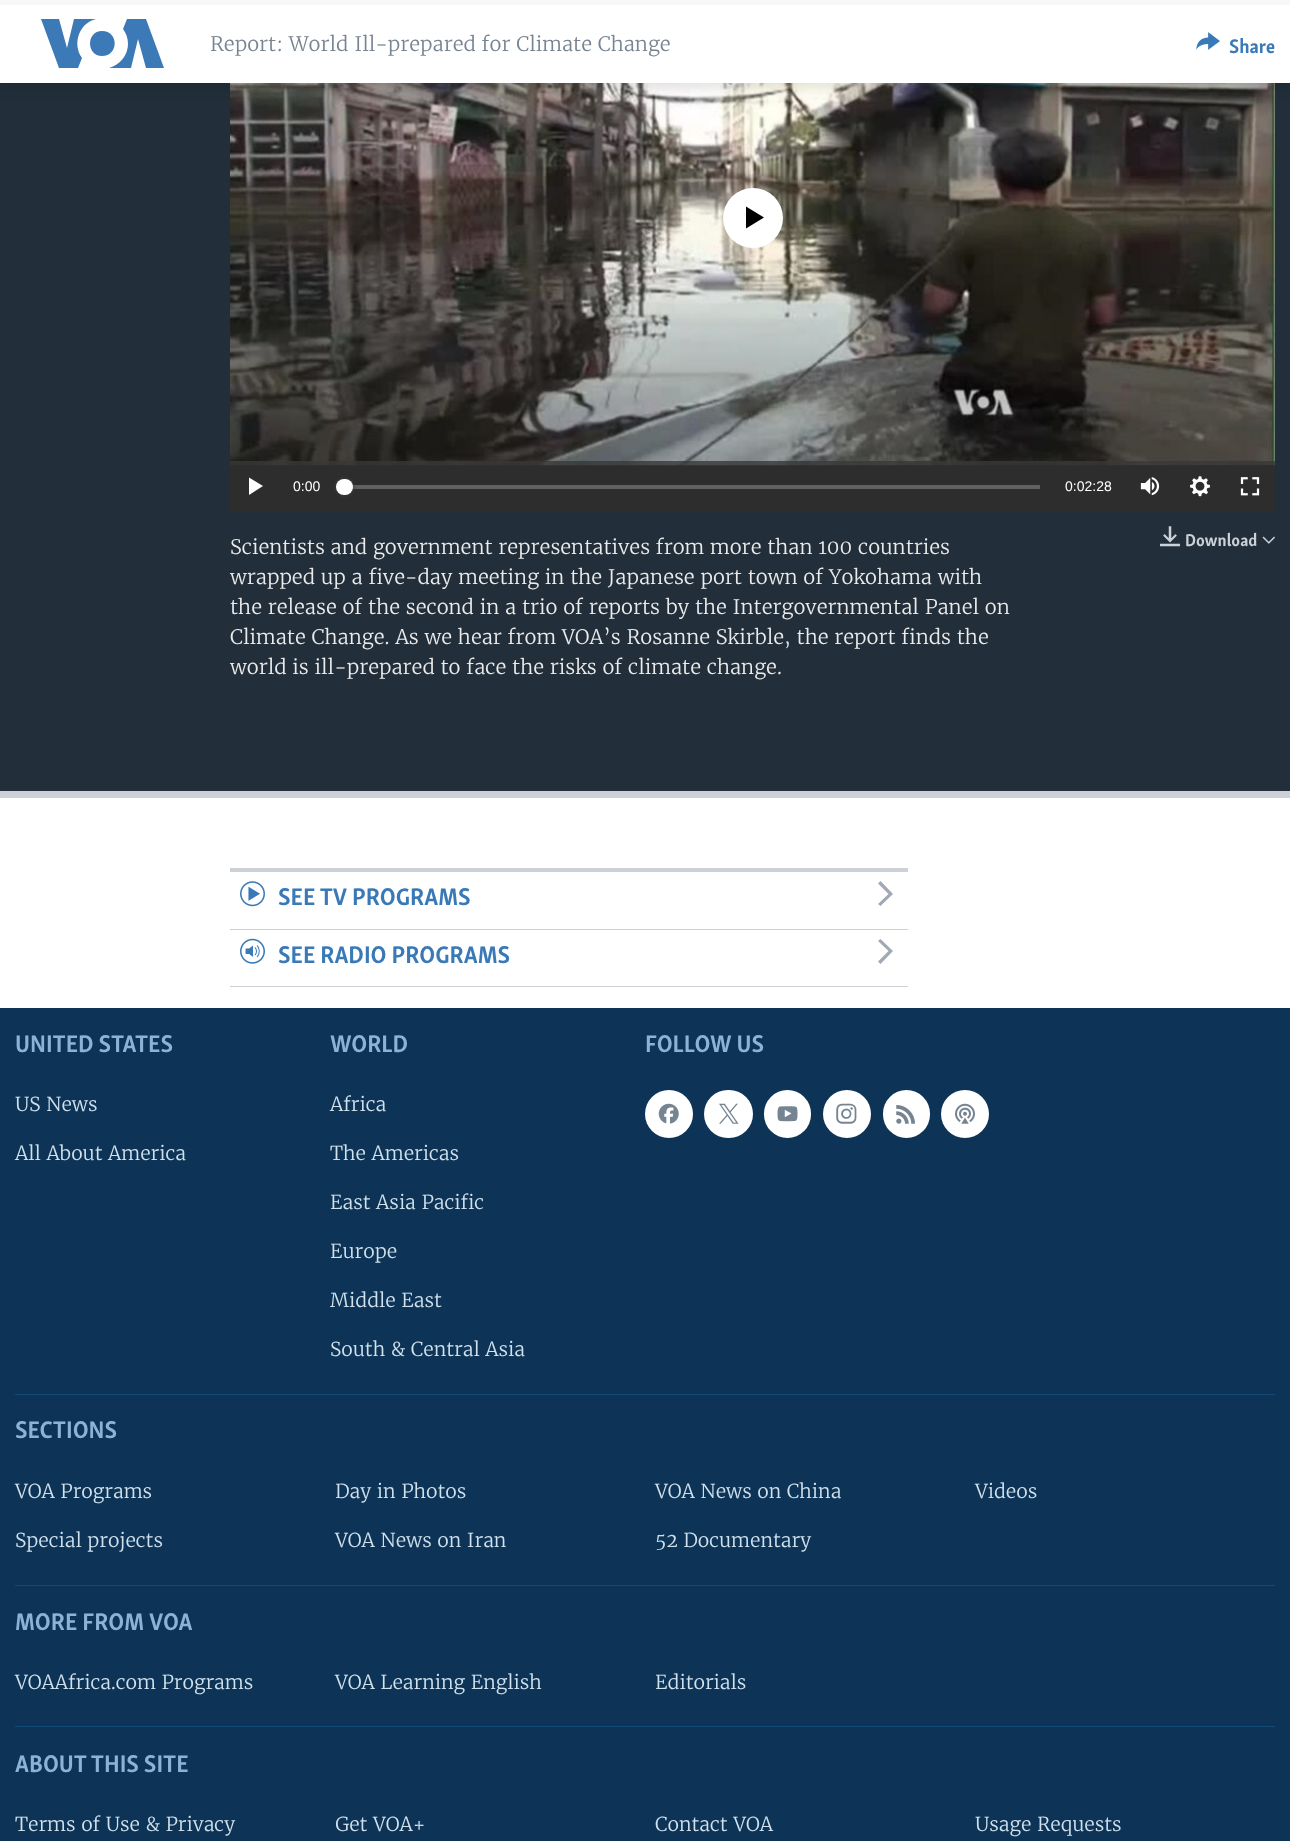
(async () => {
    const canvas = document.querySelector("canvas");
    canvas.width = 1290;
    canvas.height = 1841;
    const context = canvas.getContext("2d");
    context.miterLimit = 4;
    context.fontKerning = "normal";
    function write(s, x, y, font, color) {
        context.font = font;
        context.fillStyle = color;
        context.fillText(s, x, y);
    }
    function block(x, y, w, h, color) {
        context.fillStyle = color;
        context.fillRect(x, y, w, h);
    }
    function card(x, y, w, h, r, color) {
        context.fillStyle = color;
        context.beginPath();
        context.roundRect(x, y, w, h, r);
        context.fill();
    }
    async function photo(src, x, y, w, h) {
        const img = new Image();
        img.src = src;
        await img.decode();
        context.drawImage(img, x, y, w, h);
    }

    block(0, 0, 1290, 1841, "rgb(255, 255, 255)");
    block(0, 83, 1290, 708, "rgb(34, 47, 58)");
    block(230, 465, 1045, 46, "rgb(0, 0, 0)");
    await photo("media/2.png", 230, 83, 1045, 383);
    context.fillStyle = "rgba(0, 0, 0, 0.1)";
    context.filter = "blur(6px)";
    context.beginPath();
    context.rect(0, 6, 1290, 83);
    context.fill();
    context.filter = "none";
    block(0, 5, 1290, 78, "rgb(255, 255, 255)");
    block(0, 0, 1290, 5, "rgb(246, 247, 248)");
    context.fillStyle = "rgb(59, 121, 183)";
    context.beginPath();
    context.moveTo(82, 58);
    context.lineTo(78, 68);
    context.lineTo(59, 68);
    context.lineTo(41, 19);
    context.lineTo(59, 19);
    context.lineTo(67, 48);
    context.lineTo(74, 19);
    context.lineTo(96, 19);
    context.bezierCurveTo(79, 23, 72, 44, 82, 58);
    context.closePath();
    context.moveTo(102, 31);
    context.bezierCurveTo(86, 31, 86, 56, 102, 56);
    context.bezierCurveTo(119, 56, 119, 31, 102, 31);
    context.closePath();
    context.moveTo(128, 44);
    context.bezierCurveTo(128, 55, 120, 65, 109, 68);
    context.lineTo(131, 68);
    context.lineTo(138, 39);
    context.lineTo(146, 68);
    context.lineTo(164, 68);
    context.lineTo(146, 19);
    context.lineTo(127, 19);
    context.lineTo(123, 29);
    context.bezierCurveTo(126, 33, 128, 38, 128, 44);
    context.closePath();
    context.fill();
    write("Report: World Ill-prepared for Climate Change", 210, 51, "300 20px Merriweather", "rgb(118, 132, 146)");
    await photo("media/1.png", 1196, 32, 24, 18);
    write("Share", 1229, 53, "bold 20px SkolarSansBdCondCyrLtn", "rgb(58, 121, 183)");
    block(0, 791, 1290, 7, "rgb(203, 209, 214)");
    context.fillStyle = "rgb(255, 255, 255)";
    context.beginPath();
    context.arc(753, 218, 30, 0, Math.PI * 2);
    context.fill();
    context.fillStyle = "rgb(0, 0, 0)";
    context.beginPath();
    context.moveTo(746, 228.5);
    context.lineTo(764, 217.5);
    context.lineTo(746, 206.5);
    context.closePath();
    context.fill();
    block(230, 461, 1045, 50, "rgba(56, 56, 56, 0.8)");
    context.fillStyle = "rgb(255, 255, 255)";
    context.beginPath();
    context.moveTo(249, 495);
    context.lineTo(263, 486);
    context.lineTo(249, 477.5);
    context.closePath();
    context.fill();
    write("0:00", 293, 491, "14px Liberation Sans", "rgb(255, 255, 255)");
    block(344, 485, 696, 4, "rgb(97, 97, 97)");
    context.fillStyle = "rgb(65, 65, 68)";
    context.filter = "blur(2px)";
    context.beginPath();
    context.roundRect(336, 479, 17, 16, 8);
    context.fill();
    context.filter = "none";
    card(336, 479, 17, 16, 8, "rgb(255, 255, 255)");
    write("0:02:28", 1065, 491, "14px Liberation Sans", "rgb(255, 255, 255)");
    await photo("media/3.png", 1140, 477, 20, 19);
    await photo("media/4.png", 1190, 476, 20, 21);
    await photo("media/5.png", 1240, 477, 20, 19);
    write("Scientists and government representatives from more than 100 countries", 230, 554, "300 20px Merriweather", "rgb(235, 235, 235)");
    write("wrapped up a five-day meeting in the Japanese port town of Yokohama with", 230, 584, "300 20px Merriweather", "rgb(235, 235, 235)");
    write("the release of the second in a trio of reports by the Intergovernmental Panel on", 230, 614, "300 20px Merriweather", "rgb(235, 235, 235)");
    write("Climate Change. As we hear from VOA’s Rosanne Skirble, the report finds the", 230, 644, "300 20px Merriweather", "rgb(235, 235, 235)");
    write("world is ill-prepared to face the risks of climate change.", 230, 674, "300 20px Merriweather", "rgb(235, 235, 235)");
    await photo("media/6.png", 1160, 526, 20, 21);
    write("Download", 1185, 546, "bold 17.5px SkolarSansBdCondCyrLtn", "rgb(203, 209, 214)");
    await photo("media/7.png", 1262, 536, 13, 8);
    block(230, 868, 678, 4, "rgb(203, 209, 214)");
    block(230, 929, 678, 1, "rgb(203, 209, 214)");
    await photo("media/8.png", 240, 881, 25, 26);
    write("SEE TV PROGRAMS", 278, 905, "bold 24.75px SkolarSansBdCondCyrLtn", "rgb(58, 121, 183)");
    context.fillStyle = "rgb(161, 170, 180)";
    context.beginPath();
    context.moveTo(880.5, 906);
    context.lineTo(893, 894);
    context.lineTo(880.5, 881);
    context.lineTo(878, 883.5);
    context.lineTo(888.5, 894);
    context.lineTo(878, 904);
    context.closePath();
    context.fill();
    block(230, 986, 678, 1, "rgb(203, 209, 214)");
    await photo("media/9.png", 240, 938, 25, 26);
    write("SEE RADIO PROGRAMS", 278, 963, "bold 24.75px SkolarSansBdCondCyrLtn", "rgb(58, 121, 183)");
    context.fillStyle = "rgb(161, 170, 180)";
    context.beginPath();
    context.moveTo(880.5, 964);
    context.lineTo(893, 951);
    context.lineTo(880.5, 939);
    context.lineTo(878, 941);
    context.lineTo(888.5, 951);
    context.lineTo(878, 961.5);
    context.closePath();
    context.fill();
    block(0, 1008, 1290, 833, "rgb(13, 52, 86)");
    write("UNITED STATES", 15, 1052, "bold 24.75px SkolarSansBdCondCyrLtn", "rgb(141, 179, 212)");
    write("US News", 15, 1111, "300 19.25px Merriweather", "rgb(209, 225, 238)");
    write("All About America", 15, 1160, "300 19.25px Merriweather", "rgb(209, 225, 238)");
    write("WORLD", 330, 1052, "bold 24.75px SkolarSansBdCondCyrLtn", "rgb(141, 179, 212)");
    write("Africa", 330, 1111, "300 19.25px Merriweather", "rgb(209, 225, 238)");
    write("The Americas", 330, 1160, "300 19.25px Merriweather", "rgb(209, 225, 238)");
    write("East Asia Pacific", 330, 1209, "300 19.25px Merriweather", "rgb(209, 225, 238)");
    write("Europe", 330, 1258, "300 19.25px Merriweather", "rgb(209, 225, 238)");
    write("Middle East", 330, 1307, "300 19.25px Merriweather", "rgb(209, 225, 238)");
    write("South & Central Asia", 330, 1356, "300 19.25px Merriweather", "rgb(209, 225, 238)");
    write("FOLLOW US", 645, 1052, "bold 24.75px SkolarSansBdCondCyrLtn", "rgb(141, 179, 212)");
    context.fillStyle = "rgb(255, 255, 255)";
    context.beginPath();
    context.arc(669, 1114, 24, 0, Math.PI * 2);
    context.fill();
    await photo("media/10.png", 658, 1103, 21, 21);
    card(704, 1090, 49, 48, 24, "rgb(255, 255, 255)");
    await photo("media/11.png", 719, 1103, 20, 21);
    card(764, 1090, 47, 48, 23.5, "rgb(255, 255, 255)");
    await photo("media/12.png", 777, 1106, 21, 16);
    context.beginPath();
    context.arc(847, 1114, 24, 0, Math.PI * 2);
    context.fill();
    await photo("media/13.png", 836, 1103, 21, 21);
    card(883, 1090, 47, 48, 23.5, "rgb(255, 255, 255)");
    await photo("media/14.png", 896, 1105, 19, 19);
    context.beginPath();
    context.arc(965, 1114, 24, 0, Math.PI * 2);
    context.fill();
    await photo("media/15.png", 955, 1103, 20, 21);
    block(15, 1394, 1260, 1, "rgb(19, 73, 118)");
    write("SECTIONS", 15, 1438, "bold 24.75px SkolarSansBdCondCyrLtn", "rgb(141, 179, 212)");
    write("VOA Programs", 15, 1498, "300 19.25px Merriweather", "rgb(209, 225, 238)");
    write("Day in Photos", 335, 1498, "300 19.25px Merriweather", "rgb(209, 225, 238)");
    write("VOA News on China", 655, 1498, "300 19.25px Merriweather", "rgb(209, 225, 238)");
    write("Videos", 975, 1498, "300 19.25px Merriweather", "rgb(209, 225, 238)");
    write("Special projects", 15, 1547, "300 19.25px Merriweather", "rgb(209, 225, 238)");
    write("VOA News on Iran", 335, 1547, "300 19.25px Merriweather", "rgb(209, 225, 238)");
    write("52 Documentary", 655, 1547, "300 19.25px Merriweather", "rgb(209, 225, 238)");
    block(15, 1585, 1260, 1, "rgb(19, 73, 118)");
    write("MORE FROM VOA", 15, 1630, "bold 24.75px SkolarSansBdCondCyrLtn", "rgb(141, 179, 212)");
    write("VOAAfrica.com Programs", 15, 1689, "300 19.25px Merriweather", "rgb(209, 225, 238)");
    write("VOA Learning English", 335, 1689, "300 19.25px Merriweather", "rgb(209, 225, 238)");
    write("Editorials", 655, 1689, "300 19.25px Merriweather", "rgb(209, 225, 238)");
    block(15, 1726, 1260, 1, "rgb(19, 73, 118)");
    write("ABOUT THIS SITE", 15, 1772, "bold 24.75px SkolarSansBdCondCyrLtn", "rgb(141, 179, 212)");
    write("Terms of Use & Privacy", 15, 1831, "300 19.25px Merriweather", "rgb(209, 225, 238)");
    write("Get VOA+", 335, 1831, "300 19.25px Merriweather", "rgb(209, 225, 238)");
    write("Contact VOA", 655, 1831, "300 19.25px Merriweather", "rgb(209, 225, 238)");
    write("Usage Requests", 975, 1831, "300 19.25px Merriweather", "rgb(209, 225, 238)");
})();
